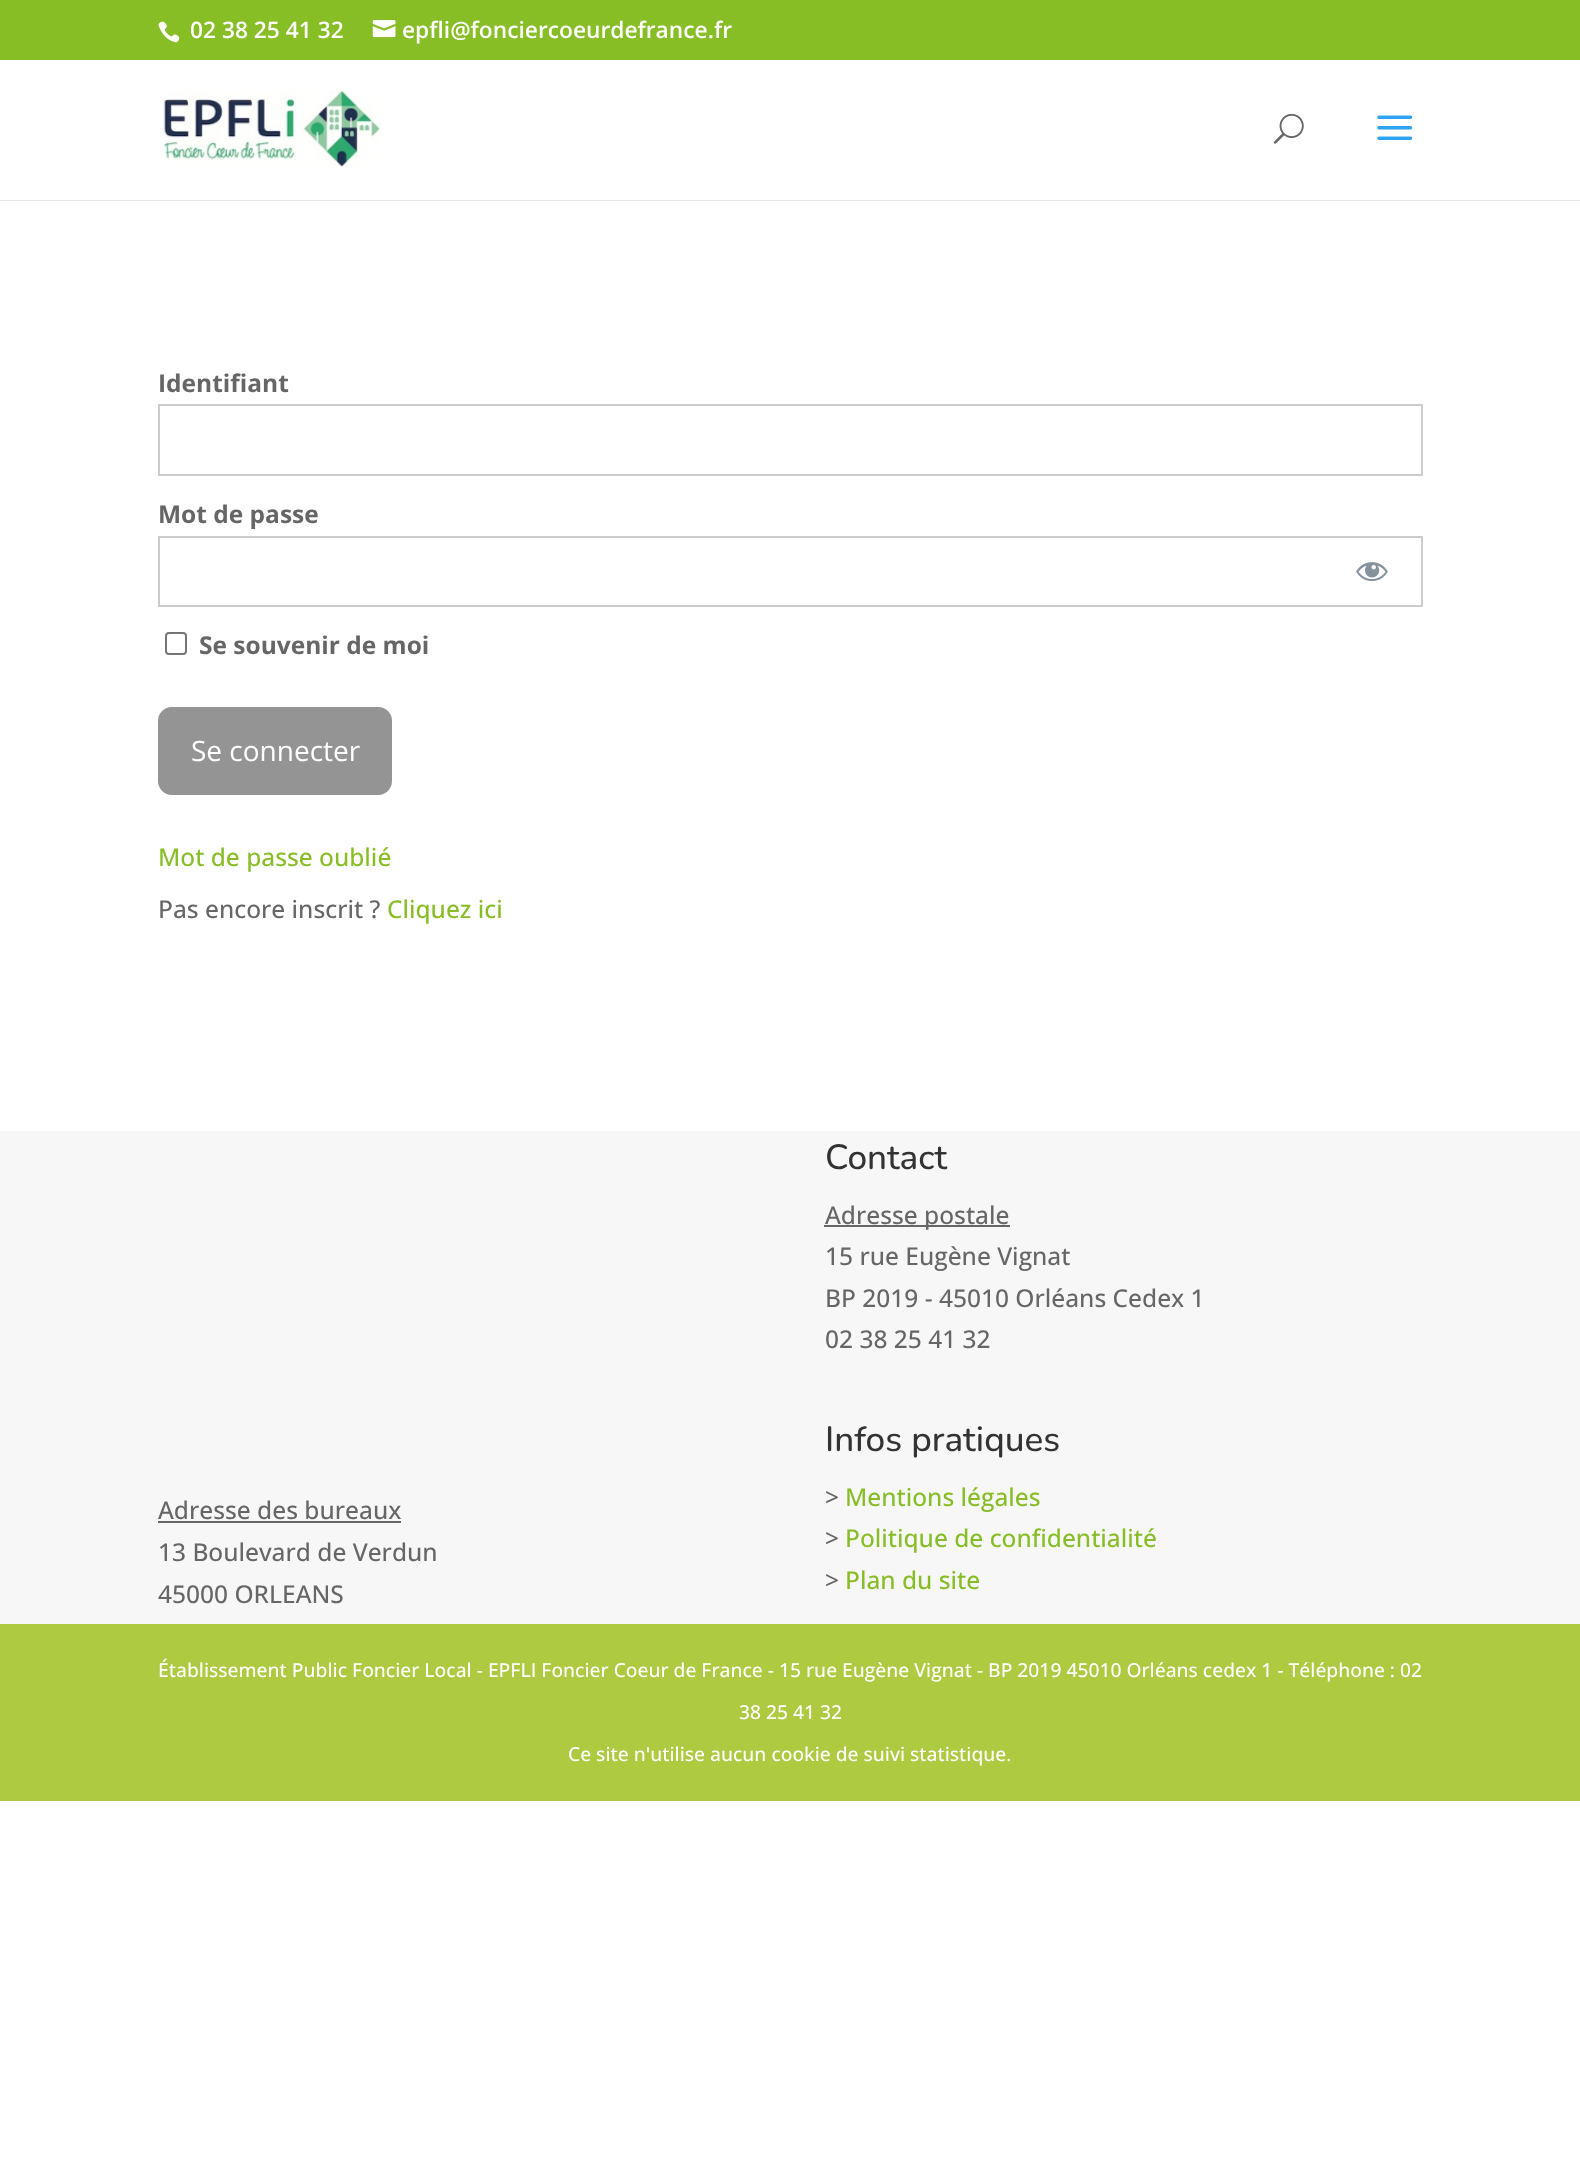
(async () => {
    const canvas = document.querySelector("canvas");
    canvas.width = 1580;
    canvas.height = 2159;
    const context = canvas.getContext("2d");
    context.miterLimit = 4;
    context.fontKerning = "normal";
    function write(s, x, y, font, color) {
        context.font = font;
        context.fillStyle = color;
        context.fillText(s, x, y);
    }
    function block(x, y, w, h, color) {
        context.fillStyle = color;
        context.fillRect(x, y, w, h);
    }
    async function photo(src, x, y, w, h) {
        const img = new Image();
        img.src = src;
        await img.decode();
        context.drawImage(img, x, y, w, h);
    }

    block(0, 0, 1580, 2159, "rgb(255, 255, 255)");
    block(0, 0, 1580, 60, "rgb(135, 189, 37)");
    await photo("media/1.png", 158, 21, 22, 22);
    write("02 38 25 41 32", 190, 38, "600 22.75px Open Sans", "rgb(255, 255, 255)");
    await photo("media/2.png", 372, 20, 24, 18);
    write("epfli@fonciercoeurdefrance.fr", 402, 38, "600 22.75px Open Sans", "rgb(255, 255, 255)");
    block(0, 200, 1580, 1, "rgb(230, 230, 230)");
    await photo("media/3.png", 163, 90, 217, 77);
    await photo("media/4.png", 1273, 113, 31, 31);
    await photo("media/5.png", 1377, 115, 36, 25);
    write("Identifiant", 158, 392, "bold 24.5px Open Sans", "rgb(102, 102, 102)");
    context.strokeStyle = "rgb(204, 204, 204)";
    context.lineWidth = 2;
    context.strokeRect(159, 405, 1263, 70);
    write("Mot de passe", 158, 523, "bold 24.5px Open Sans", "rgb(102, 102, 102)");
    context.strokeRect(159, 537, 1263, 69);
    await photo("media/6.png", 1356, 562, 32, 20);
    context.beginPath();
    context.roundRect(166, 633, 20, 21, 3);
    context.strokeStyle = "rgb(118, 118, 118)";
    context.stroke();
    write("Se souvenir de moi", 199, 654, "bold 24.5px Open Sans", "rgb(102, 102, 102)");
    context.fillStyle = "rgb(148, 148, 148)";
    context.beginPath();
    context.roundRect(159, 708, 232, 86, 13);
    context.fill();
    context.strokeStyle = "rgb(148, 148, 148)";
    context.stroke();
    write("Se connecter", 191, 761, "28px Open Sans", "rgb(255, 255, 255)");
    write("Mot de passe oublié", 158, 866, "500 24.5px Open Sans", "rgb(135, 189, 37)");
    write("Pas encore inscrit ?", 158, 918, "500 24.5px Open Sans", "rgb(102, 102, 102)");
    write("Cliquez ici", 387, 918, "500 24.5px Open Sans", "rgb(135, 189, 37)");
    block(0, 1131, 1580, 493, "rgb(247, 247, 247)");
    write("Contact", 825, 1169, "500 35px Nunito", "rgb(51, 51, 51)");
    block(824, 1225, 186, 2, "rgb(102, 102, 102)");
    write("Adresse postale", 825, 1224, "500 24.5px Open Sans", "rgb(102, 102, 102)");
    write("15 rue Eugène Vignat", 825, 1265, "500 24.5px Open Sans", "rgb(102, 102, 102)");
    write("BP 2019 - 45010 Orléans Cedex 1", 825, 1307, "500 24.5px Open Sans", "rgb(102, 102, 102)");
    write("02 38 25 41 32", 825, 1348, "500 24.5px Open Sans", "rgb(102, 102, 102)");
    write("Adresse des bureaux", 158, 1519, "500 24.5px Open Sans", "rgb(102, 102, 102)");
    block(158, 1521, 243, 2, "rgb(102, 102, 102)");
    write("13 Boulevard de Verdun", 158, 1561, "500 24.5px Open Sans", "rgb(102, 102, 102)");
    write("45000 ORLEANS", 158, 1603, "500 24.5px Open Sans", "rgb(102, 102, 102)");
    write("Infos pratiques", 825, 1451, "500 35px Nunito", "rgb(51, 51, 51)");
    write(">", 825, 1506, "500 24.5px Open Sans", "rgb(102, 102, 102)");
    write("Mentions légales", 845, 1506, "500 24.5px Open Sans", "rgb(135, 189, 37)");
    write(">", 825, 1547, "500 24.5px Open Sans", "rgb(102, 102, 102)");
    write("Politique de confidentialité", 845, 1547, "500 24.5px Open Sans", "rgb(135, 189, 37)");
    write(">", 825, 1589, "500 24.5px Open Sans", "rgb(102, 102, 102)");
    write("Plan du site", 845, 1589, "500 24.5px Open Sans", "rgb(135, 189, 37)");
    block(0, 1624, 1580, 177, "rgb(173, 202, 65)");
    write("Établissement Public Foncier Local - EPFLI Foncier Coeur de France - 15 rue Eugène Vignat - BP 2019 45010 Orléans cedex 1 - Téléphone : 02", 158, 1677, "500 19.25px Open Sans", "rgb(255, 255, 255)");
    write("38 25 41 32", 739, 1719, "500 19.25px Open Sans", "rgb(255, 255, 255)");
    write("Ce site n'utilise aucun cookie de suivi statistique.", 568, 1761, "500 19.25px Open Sans", "rgb(255, 255, 255)");
})();
